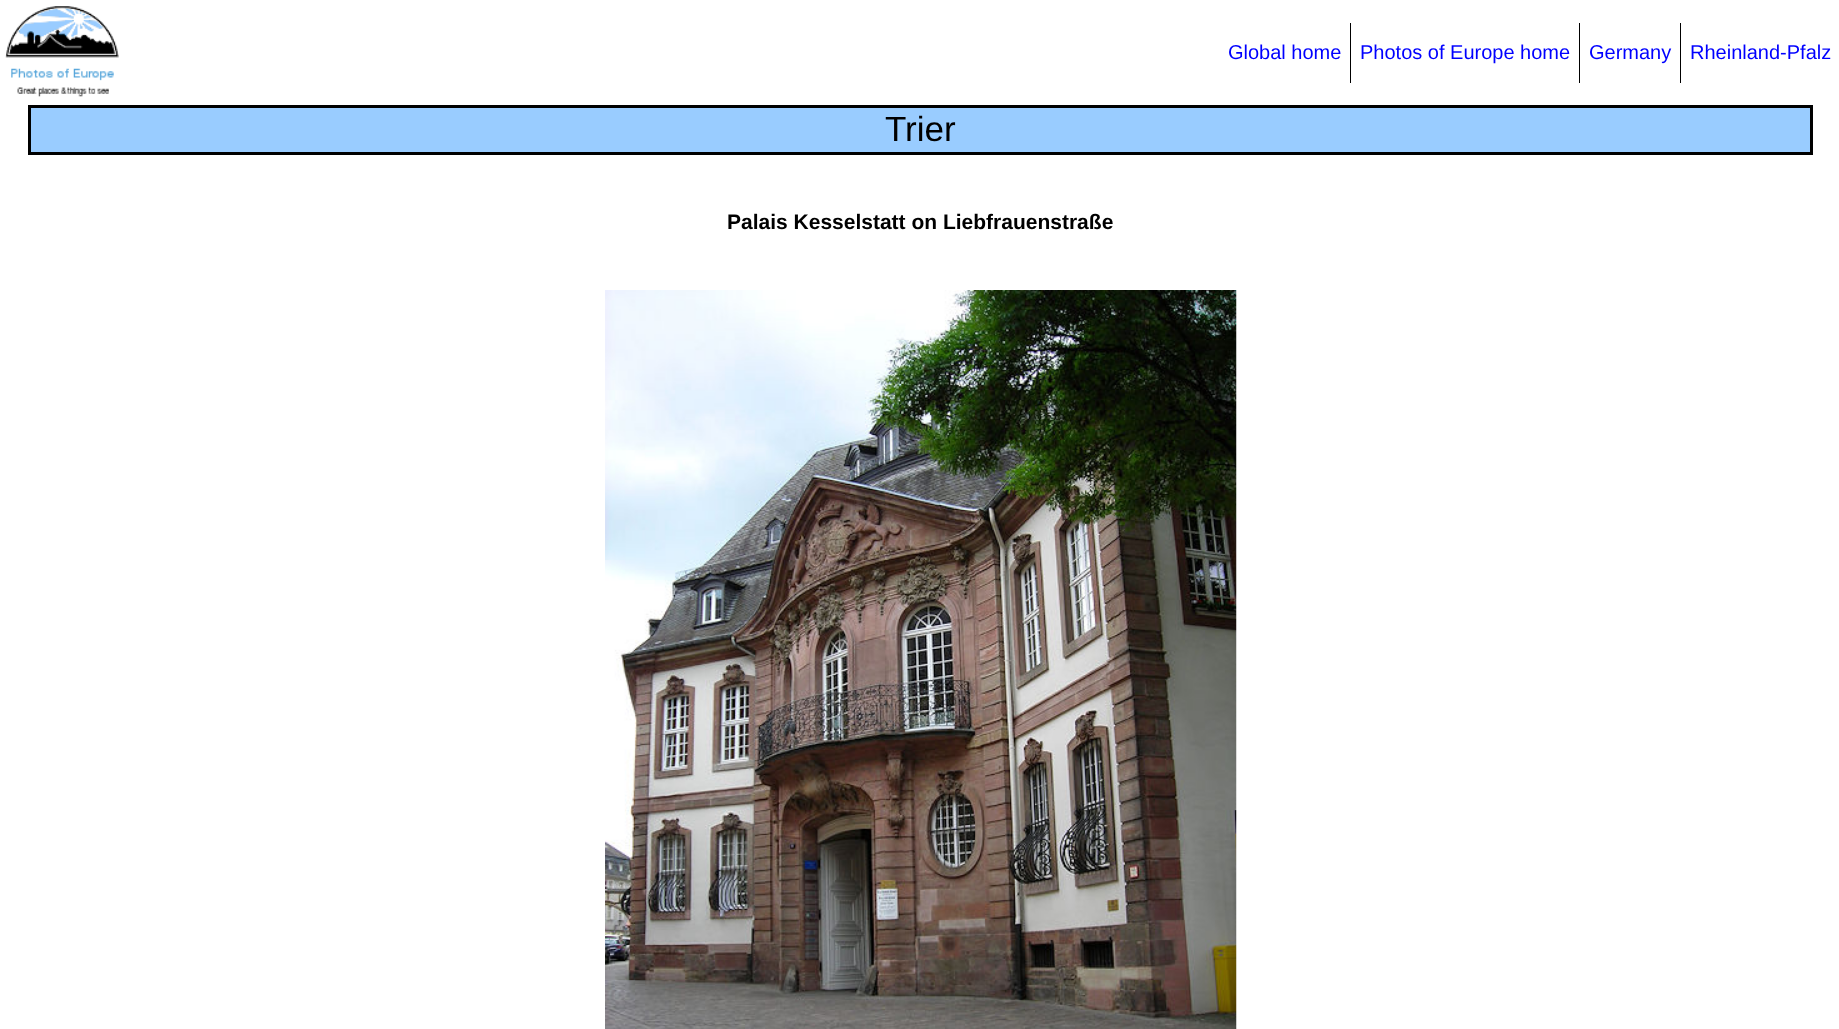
(async () => {
    const canvas = document.querySelector("canvas");
    canvas.width = 1839;
    canvas.height = 1029;
    const context = canvas.getContext("2d");
    context.miterLimit = 4;
    context.fontKerning = "normal";
    function write(s, x, y, font, color) {
        context.font = font;
        context.fillStyle = color;
        context.fillText(s, x, y);
    }
    function block(x, y, w, h, color) {
        context.fillStyle = color;
        context.fillRect(x, y, w, h);
    }
    async function photo(src, x, y, w, h) {
        const img = new Image();
        img.src = src;
        await img.decode();
        context.drawImage(img, x, y, w, h);
    }

    block(0, 0, 1839, 1029, "rgb(255, 255, 255)");
    await photo("media/1.png", 5, 6, 114, 91);
    block(1350, 23, 1, 60, "rgb(0, 0, 0)");
    write("Global home", 1228, 59, "20px Liberation Sans", "rgb(0, 0, 255)");
    block(1579, 23, 1, 60, "rgb(0, 0, 0)");
    write("Photos of Europe home", 1360, 59, "20px Liberation Sans", "rgb(0, 0, 255)");
    block(1680, 23, 1, 60, "rgb(0, 0, 0)");
    write("Germany", 1589, 59, "20px Liberation Sans", "rgb(0, 0, 255)");
    write("Rheinland-Pfalz", 1690, 59, "20px Liberation Sans", "rgb(0, 0, 255)");
    context.fillStyle = "rgb(153, 204, 255)";
    context.beginPath();
    context.rect(29.5, 106.5, 1782, 47);
    context.fill();
    context.strokeStyle = "rgb(0, 0, 0)";
    context.lineWidth = 3;
    context.stroke();
    write("Trier", 885, 141, "35px Liberation Sans", "rgb(0, 0, 0)");
    write("Palais Kesselstatt on Liebfrauenstraße", 727, 229, "bold 21px Liberation Sans", "rgb(0, 0, 0)");
    await photo("media/2.png", 605, 290, 632, 739);
})();
